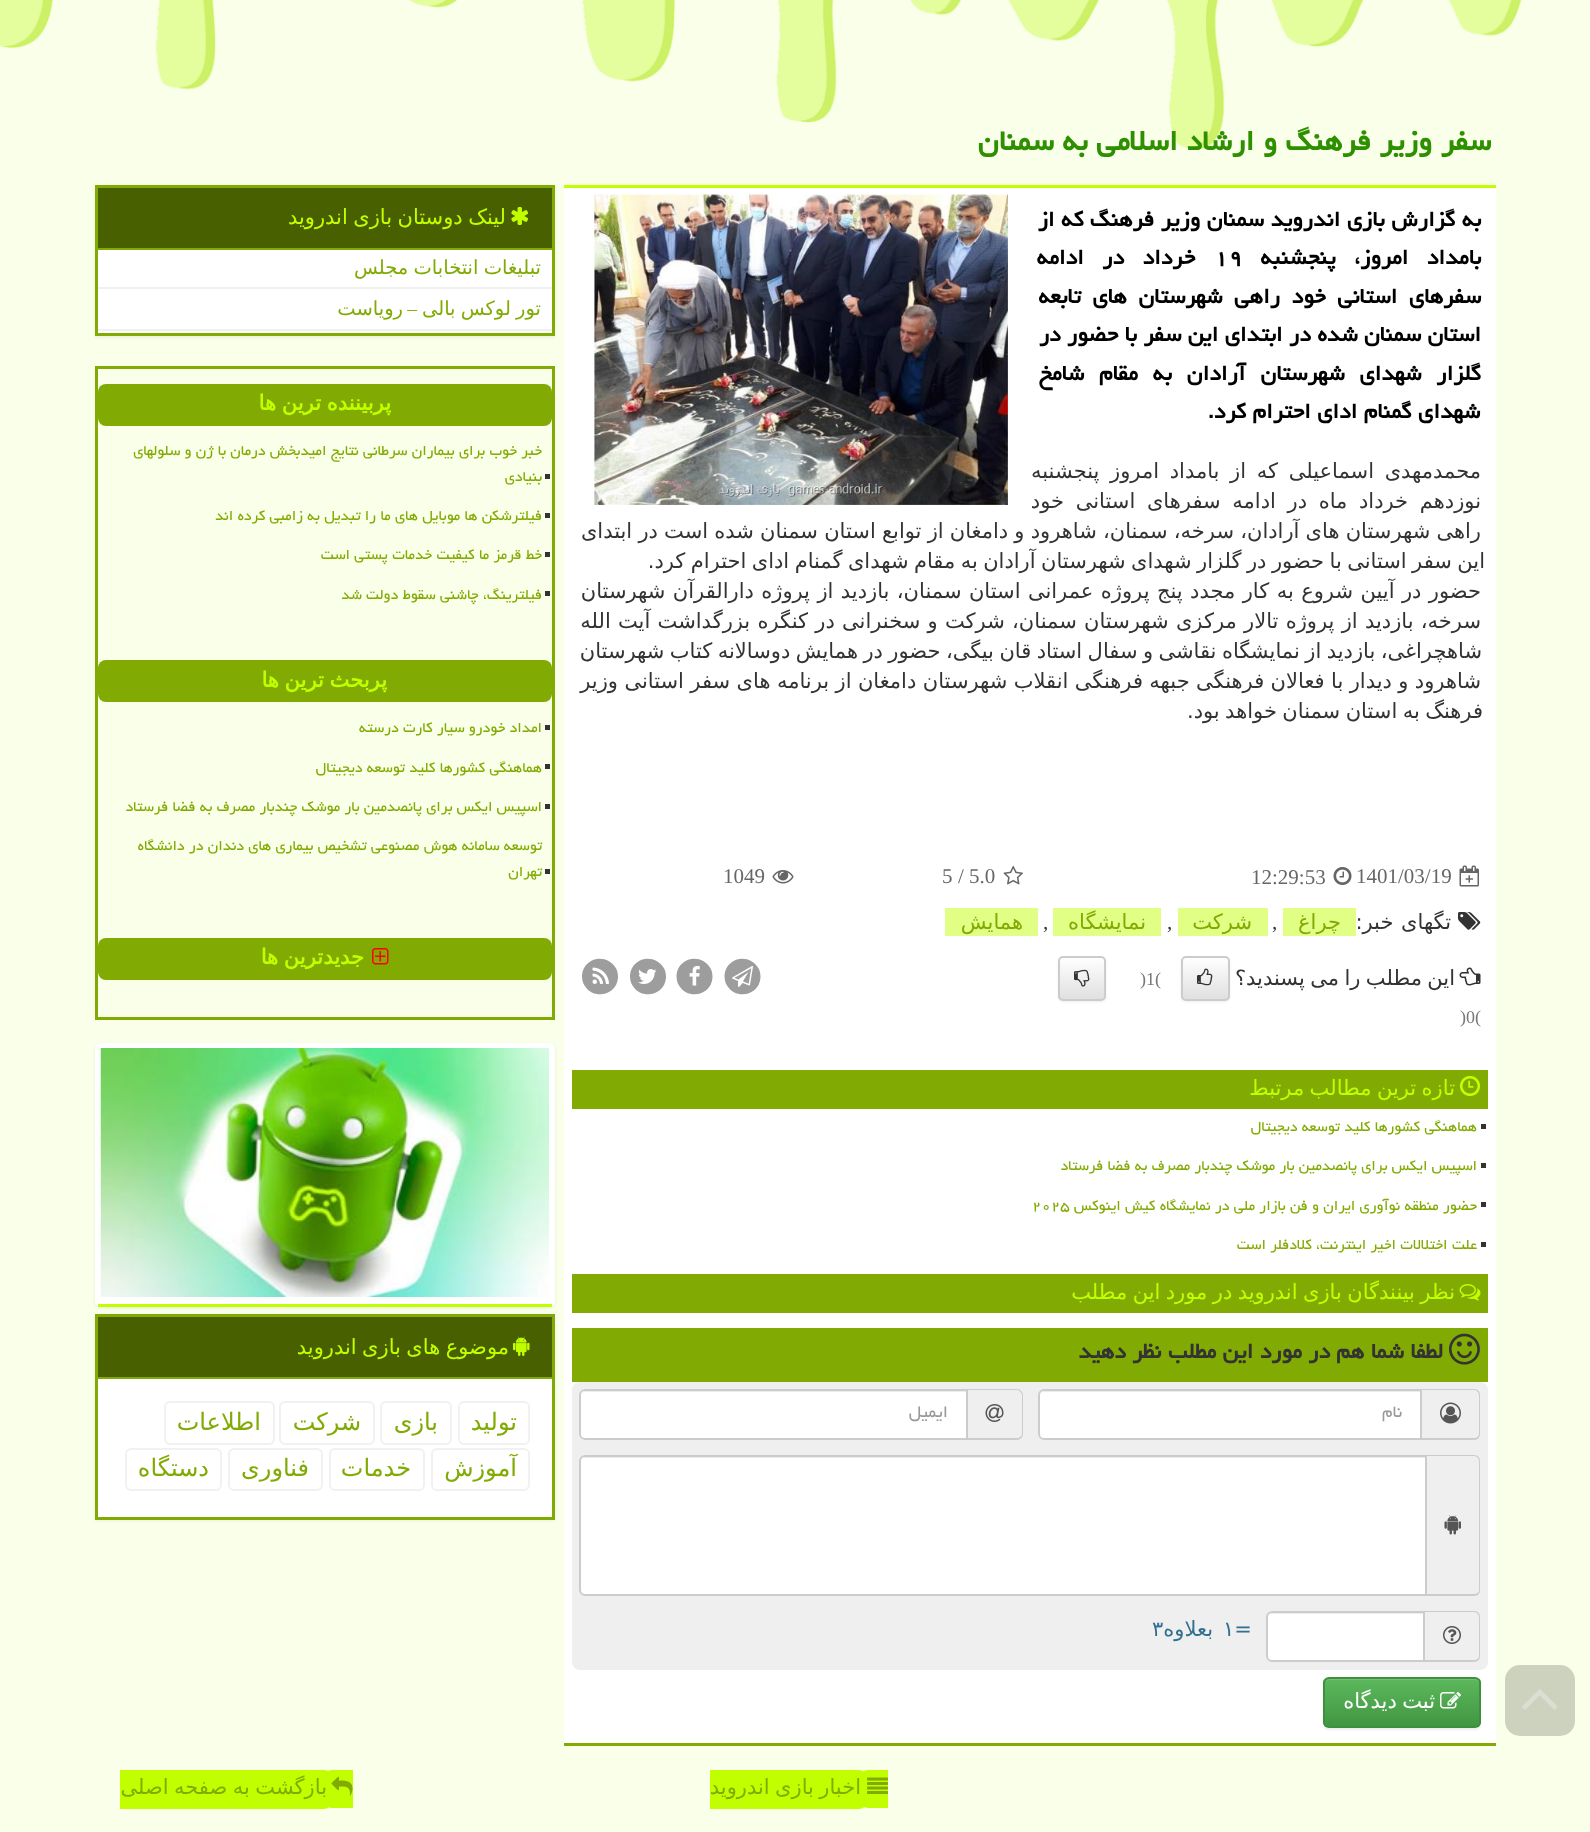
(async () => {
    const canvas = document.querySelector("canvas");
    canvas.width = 1590;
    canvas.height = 1832;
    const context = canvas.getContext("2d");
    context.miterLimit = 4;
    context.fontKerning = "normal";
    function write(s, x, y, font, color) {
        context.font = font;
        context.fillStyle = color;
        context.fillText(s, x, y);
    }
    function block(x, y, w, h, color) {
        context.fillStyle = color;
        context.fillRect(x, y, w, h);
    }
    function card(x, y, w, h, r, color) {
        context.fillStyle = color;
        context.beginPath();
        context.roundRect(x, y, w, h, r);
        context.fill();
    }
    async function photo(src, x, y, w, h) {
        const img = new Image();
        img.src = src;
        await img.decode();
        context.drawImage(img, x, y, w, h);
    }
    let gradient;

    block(0, 0, 1590, 1832, "rgb(249, 255, 232)");
    await photo("media/1.png", 0, 0, 1522, 150);
    context.direction = "rtl";
    write("سفر وزیر فرهنگ و ارشاد اسلامی به سمنان", 1491, 150, "bold 36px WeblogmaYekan", "rgb(46, 144, 0)");
    card(1505, 1665, 70, 71, 15, "rgb(205, 210, 191)");
    await photo("media/2.png", 1522, 1689, 36, 21);
    block(564, 188, 932, 1555, "rgb(255, 255, 255)");
    block(564, 185, 932, 3, "rgb(193, 255, 0)");
    block(564, 1743, 932, 3, "rgb(129, 170, 2)");
    context.wordSpacing = "0.25px";
    write("به گزارش بازی اندروید سمنان وزیر فرهنگ که از", 1481, 226, "bold 27px WeblogmaYekan", "rgb(0, 0, 0)");
    context.wordSpacing = "12px";
    write("بامداد امروز، پنجشنبه", 1481, 264, "bold 27px WeblogmaYekan", "rgb(0, 0, 0)");
    context.wordSpacing = "0px";
    context.direction = "ltr";
    write("۱۹", 1214, 264, "bold 27px WeblogmaYekan", "rgb(0, 0, 0)");
    context.wordSpacing = "12px";
    context.direction = "rtl";
    write("خرداد در ادامه", 1195, 264, "bold 27px WeblogmaYekan", "rgb(0, 0, 0)");
    context.wordSpacing = "5.25px";
    write("سفرهای استانی خود راهی شهرستان های تابعه", 1481, 303, "bold 27px WeblogmaYekan", "rgb(0, 0, 0)");
    context.wordSpacing = "0px";
    write("استان سمنان شده در ابتدای این سفر با حضور در", 1481, 341, "bold 27px WeblogmaYekan", "rgb(0, 0, 0)");
    context.wordSpacing = "8.5px";
    write("گلزار شهدای شهرستان آرادان به مقام شامخ", 1481, 380, "bold 27px WeblogmaYekan", "rgb(0, 0, 0)");
    context.wordSpacing = "0px";
    write("شهدای گمنام ادای احترام کرد.", 1480, 418, "bold 27px WeblogmaYekan", "rgb(0, 0, 0)");
    await photo("media/3.png", 594, 194, 414, 311);
    context.wordSpacing = "4px";
    write("محمدمهدی اسماعیلی که از بامداد امروز پنجشنبه", 1481, 478, "21px DejaVu Sans", "rgb(51, 51, 51)");
    context.wordSpacing = "5px";
    write("نوزدهم خرداد ماه در ادامه سفرهای استانی خود", 1481, 508, "21px DejaVu Sans", "rgb(51, 51, 51)");
    context.wordSpacing = "-0.5px";
    write("راهی شهرستان های آرادان، سرخه، سمنان، شاهرود و دامغان از توابع استان سمنان شده است در ابتدای", 1481, 538, "21px DejaVu Sans", "rgb(51, 51, 51)");
    context.wordSpacing = "-1.25px";
    write("این سفر استانی با حضور در گلزار شهدای شهرستان آرادان به مقام شهدای گمنام ادای احترام کرد.", 1485, 568, "21px DejaVu Sans", "rgb(51, 51, 51)");
    context.wordSpacing = "0.75px";
    write("حضور در آیین شروع به کار مجدد پنج پروژه عمرانی استان سمنان، بازدید از پروژه دارالقرآن شهرستان", 1481, 598, "21px DejaVu Sans", "rgb(51, 51, 51)");
    context.wordSpacing = "0.6px";
    write("سرخه، بازدید از پروژه تالار مرکزی شهرستان سمنان، شرکت و سخنرانی در کنگره بزرگداشت آیت الله", 1481, 628, "21px DejaVu Sans", "rgb(51, 51, 51)");
    context.wordSpacing = "-1.25px";
    write("شاهچراغی، بازدید از نمایشگاه نقاشی و سفال استاد قان بیگی، حضور در همایش دوسالانه کتاب شهرستان", 1482, 658, "21px DejaVu Sans", "rgb(51, 51, 51)");
    context.wordSpacing = "-0.25px";
    write("شاهرود و دیدار با فعالان فرهنگی جبهه فرهنگی انقلاب شهرستان دامغان از برنامه های سفر استانی وزیر", 1481, 688, "21px DejaVu Sans", "rgb(51, 51, 51)");
    context.wordSpacing = "-1.25px";
    write("فرهنگ به استان سمنان خواهد بود.", 1483, 718, "21px DejaVu Sans", "rgb(51, 51, 51)");
    await photo("media/4.png", 1459, 865, 20, 22);
    context.wordSpacing = "0px";
    context.direction = "ltr";
    write("1401/03/19", 1356, 883, "21px Liberation Serif", "rgb(102, 102, 102)");
    await photo("media/5.png", 1333, 867, 19, 18);
    write("12:29:53", 1251, 884, "21px Liberation Serif", "rgb(102, 102, 102)");
    await photo("media/6.png", 1003, 865, 20, 20);
    write("5.0", 969, 883, "21px Liberation Serif", "rgb(102, 102, 102)");
    write("/", 958, 883, "21px Liberation Serif", "rgb(102, 102, 102)");
    write("5", 942, 883, "21px Liberation Serif", "rgb(102, 102, 102)");
    await photo("media/7.png", 772, 870, 22, 14);
    write("1049", 723, 883, "21px Liberation Serif", "rgb(102, 102, 102)");
    await photo("media/8.png", 1458, 912, 23, 18);
    context.wordSpacing = "1px";
    context.direction = "rtl";
    write("تگهای خبر:", 1451, 929, "21px DejaVu Sans", "rgb(51, 51, 51)");
    block(1283, 908, 73, 28, "rgb(225, 255, 133)");
    context.wordSpacing = "0px";
    write("چراغ", 1341, 929, "21px DejaVu Sans", "rgb(129, 170, 2)");
    context.direction = "ltr";
    write(",", 1272, 929, "21px Liberation Serif", "rgb(51, 51, 51)");
    block(1178, 908, 90, 28, "rgb(225, 255, 133)");
    context.direction = "rtl";
    write("شركت", 1252, 929, "21px DejaVu Sans", "rgb(129, 170, 2)");
    context.direction = "ltr";
    write(",", 1167, 929, "21px Liberation Serif", "rgb(51, 51, 51)");
    block(1053, 908, 108, 28, "rgb(225, 255, 133)");
    context.direction = "rtl";
    write("نمایشگاه", 1146, 929, "21px DejaVu Sans", "rgb(129, 170, 2)");
    context.direction = "ltr";
    write(",", 1043, 929, "21px Liberation Serif", "rgb(51, 51, 51)");
    block(945, 908, 93, 28, "rgb(225, 255, 133)");
    context.direction = "rtl";
    write("همایش", 1023, 929, "21px DejaVu Sans", "rgb(129, 170, 2)");
    await photo("media/9.png", 1459, 967, 22, 19);
    context.wordSpacing = "-1.25px";
    write("این مطلب را می پسندید؟", 1455, 985, "21px DejaVu Sans", "rgb(51, 51, 51)");
    context.fillStyle = "rgba(0, 0, 0, 0.07)";
    context.filter = "blur(1px)";
    context.beginPath();
    context.roundRect(1181, 957, 49, 45, 5);
    context.fill();
    context.filter = "none";
    context.save();
    context.beginPath();
    context.roundRect(1181, 956, 49, 45, 5);
    context.clip();
    gradient = context.createLinearGradient(1205, 957, 1205, 999);
    gradient.addColorStop(0, "rgb(255, 255, 255)");
    gradient.addColorStop(1, "rgb(224, 224, 224)");
    context.fillStyle = gradient;
    context.fillRect(1181, 957, 49, 42);
    context.restore();
    context.fillStyle = "rgba(255, 255, 255, 0.15)";
    context.beginPath();
    context.moveTo(1185, 958);
    context.lineTo(1226, 958);
    context.bezierCurveTo(1229, 959, 1228, 972, 1228, 974);
    context.lineTo(1228, 998);
    context.bezierCurveTo(1229, 998, 1229, 997, 1229, 996);
    context.lineTo(1229, 960);
    context.bezierCurveTo(1229, 958, 1228, 957, 1226, 957);
    context.lineTo(1185, 957);
    context.bezierCurveTo(1183, 957, 1182, 958, 1182, 960);
    context.lineTo(1182, 962);
    context.bezierCurveTo(1182, 960, 1183, 958, 1185, 958);
    context.closePath();
    context.fill();
    context.beginPath();
    context.roundRect(1182, 957, 47, 43, 4);
    context.strokeStyle = "rgb(204, 204, 204)";
    context.lineWidth = 2;
    context.stroke();
    await photo("media/10.png", 1197, 968, 16, 18);
    context.wordSpacing = "0px";
    context.direction = "ltr";
    write(")1(", 1140, 985, "18px Liberation Serif", "rgb(119, 119, 119)");
    context.fillStyle = "rgba(0, 0, 0, 0.07)";
    context.filter = "blur(1px)";
    context.beginPath();
    context.roundRect(1058, 957, 48, 45, 5);
    context.fill();
    context.filter = "none";
    context.save();
    context.beginPath();
    context.roundRect(1058, 956, 48, 45, 5);
    context.clip();
    gradient = context.createLinearGradient(1082, 957, 1082, 999);
    gradient.addColorStop(0, "rgb(255, 255, 255)");
    gradient.addColorStop(1, "rgb(224, 224, 224)");
    context.fillStyle = gradient;
    context.fillRect(1058, 957, 48, 42);
    context.restore();
    context.beginPath();
    context.roundRect(1059, 957, 46, 43, 4);
    context.stroke();
    await photo("media/11.png", 1074, 969, 16, 18);
    write(")0(", 1460, 1023, "18px Liberation Serif", "rgb(119, 119, 119)");
    context.fillStyle = "rgb(157, 157, 157)";
    context.beginPath();
    context.moveTo(758, 967.5);
    context.bezierCurveTo(760, 970.5, 760.5, 974, 760.5, 977.5);
    context.bezierCurveTo(759.5, 995.5, 736, 1000.5, 727, 985.5);
    context.bezierCurveTo(725, 982.5, 724.5, 979, 724.5, 975.5);
    context.bezierCurveTo(725.5, 957.5, 749, 952.5, 758, 967.5);
    context.closePath();
    context.fill();
    await photo("media/12.png", 732, 966, 21, 21);
    context.beginPath();
    context.moveTo(710, 967.5);
    context.bezierCurveTo(712, 970.5, 712.5, 974, 712.5, 977.5);
    context.bezierCurveTo(711.5, 995.5, 688, 1000.5, 679, 985.5);
    context.bezierCurveTo(677, 982.5, 676.5, 979, 676.5, 975.5);
    context.bezierCurveTo(677.5, 957.5, 701, 952.5, 710, 967.5);
    context.closePath();
    context.fill();
    await photo("media/13.png", 689, 966, 11, 20);
    context.beginPath();
    context.moveTo(663.5, 967.5);
    context.bezierCurveTo(665.5, 970.5, 666, 974, 666, 977.5);
    context.bezierCurveTo(665, 995.5, 641.5, 1000.5, 632.5, 985.5);
    context.bezierCurveTo(630.5, 982.5, 630, 979, 630, 975.5);
    context.bezierCurveTo(631, 957.5, 654.5, 952.5, 663.5, 967.5);
    context.closePath();
    context.fill();
    await photo("media/14.png", 638, 969, 19, 15);
    context.beginPath();
    context.moveTo(615.5, 967.5);
    context.bezierCurveTo(617.5, 970.5, 618, 974, 618, 977.5);
    context.bezierCurveTo(617, 995.5, 593.5, 1000.5, 584.5, 985.5);
    context.bezierCurveTo(582.5, 982.5, 582, 979, 582, 975.5);
    context.bezierCurveTo(583, 957.5, 606.5, 952.5, 615.5, 967.5);
    context.closePath();
    context.fill();
    await photo("media/15.png", 592, 967, 17, 17);
    block(572, 1070, 916, 39, "rgb(129, 170, 2)");
    await photo("media/16.png", 1459, 1076, 21, 20);
    context.wordSpacing = "-1.25px";
    context.direction = "rtl";
    write("تازه ترین مطالب مرتبط", 1455, 1095, "21px DejaVu Sans", "rgb(193, 255, 0)");
    block(1481, 1124, 5, 5, "rgb(51, 51, 51)");
    context.wordSpacing = "0px";
    write("هماهنگی کشورها کلید توسعه دیجیتال", 1477, 1131, "18px WeblogmaYekan", "rgb(129, 170, 2)");
    block(1481, 1163, 5, 5, "rgb(51, 51, 51)");
    write("اسپیس ایکس برای پانصدمین بار موشک چندبار مصرف به فضا فرستاد", 1477, 1170, "18px WeblogmaYekan", "rgb(129, 170, 2)");
    block(1481, 1202, 5, 5, "rgb(51, 51, 51)");
    write("حضور منطقه نوآوری ایران و فن بازار ملی در نمایشگاه کیش اینوکس", 1477, 1210, "18px WeblogmaYekan", "rgb(129, 170, 2)");
    context.direction = "ltr";
    write("۲۰۲۵", 1032, 1210, "18px WeblogmaYekan", "rgb(129, 170, 2)");
    block(1481, 1242, 5, 5, "rgb(51, 51, 51)");
    context.direction = "rtl";
    write("علت اختلالات اخیر اینترنت، کلادفلر است", 1477, 1249, "18px WeblogmaYekan", "rgb(129, 170, 2)");
    block(572, 1274, 916, 39, "rgb(129, 170, 2)");
    await photo("media/17.png", 1459, 1284, 22, 17);
    context.wordSpacing = "-1.25px";
    write("نظر بینندگان بازی اندروید در مورد این مطلب", 1455, 1299, "21px DejaVu Sans", "rgb(193, 255, 0)");
    block(572, 1328, 916, 54, "rgb(129, 170, 2)");
    await photo("media/18.png", 1449, 1333, 31, 32);
    context.wordSpacing = "0px";
    write("لطفا شما هم", 1443, 1358, "bold 27px WeblogmaYekan", "rgb(51, 51, 51)");
    write("در مورد این مطلب", 1330, 1358, "bold 27px WeblogmaYekan", "rgb(51, 51, 51)");
    write("نظر دهید", 1161, 1358, "bold 27px WeblogmaYekan", "rgb(51, 51, 51)");
    card(572, 1382, 916, 288, 8, "rgb(239, 239, 239)");
    context.fillStyle = "rgb(204, 204, 204)";
    context.beginPath();
    context.moveTo(1422, 1389);
    context.lineTo(1474, 1389);
    context.bezierCurveTo(1478, 1389, 1480, 1392, 1480, 1395);
    context.lineTo(1480, 1434);
    context.bezierCurveTo(1480, 1437, 1478, 1440, 1474, 1440);
    context.lineTo(1422, 1440);
    context.closePath();
    context.moveTo(1422, 1390);
    context.lineTo(1474, 1390);
    context.bezierCurveTo(1477, 1390, 1479, 1393, 1479, 1395);
    context.lineTo(1479, 1434);
    context.bezierCurveTo(1479, 1436, 1477, 1438, 1474, 1438);
    context.lineTo(1422, 1438);
    context.closePath();
    context.fill("evenodd");
    await photo("media/19.png", 1440, 1402, 21, 22);
    context.fillStyle = "rgb(255, 255, 255)";
    context.beginPath();
    context.roundRect(1038, 1389, 384, 51, [6, 0, 0, 6]);
    context.fill();
    context.fillStyle = "rgb(236, 236, 236)";
    context.beginPath();
    context.moveTo(1044, 1392);
    context.lineTo(1420, 1392);
    context.lineTo(1420, 1439);
    context.lineTo(1421, 1439);
    context.lineTo(1421, 1391);
    context.lineTo(1045, 1391);
    context.bezierCurveTo(1042, 1391, 1040, 1393, 1040, 1396);
    context.bezierCurveTo(1040, 1394, 1042, 1392, 1044, 1392);
    context.closePath();
    context.fill();
    context.beginPath();
    context.roundRect(1039, 1390, 382, 49, [5, 0, 0, 5]);
    context.stroke();
    write("نام", 1402, 1417, "21px WeblogmaYekan", "rgb(153, 153, 153)");
    context.fillStyle = "rgb(204, 204, 204)";
    context.beginPath();
    context.moveTo(968, 1389);
    context.lineTo(1017, 1389);
    context.bezierCurveTo(1020, 1389, 1023, 1392, 1023, 1395);
    context.lineTo(1023, 1434);
    context.bezierCurveTo(1023, 1437, 1020, 1440, 1017, 1440);
    context.lineTo(968, 1440);
    context.closePath();
    context.moveTo(968, 1390);
    context.lineTo(1017, 1390);
    context.bezierCurveTo(1019, 1390, 1022, 1393, 1022, 1395);
    context.lineTo(1022, 1434);
    context.bezierCurveTo(1022, 1436, 1019, 1438, 1017, 1438);
    context.lineTo(968, 1438);
    context.closePath();
    context.fill("evenodd");
    await photo("media/20.png", 985, 1404, 19, 18);
    context.fillStyle = "rgb(255, 255, 255)";
    context.beginPath();
    context.roundRect(579, 1389, 389, 51, [6, 0, 0, 6]);
    context.fill();
    context.fillStyle = "rgb(236, 236, 236)";
    context.beginPath();
    context.moveTo(585, 1392);
    context.lineTo(966, 1392);
    context.lineTo(966, 1391);
    context.lineTo(585, 1391);
    context.lineTo(582, 1393);
    context.closePath();
    context.fill();
    context.beginPath();
    context.roundRect(580, 1390, 387, 49, [5, 0, 0, 5]);
    context.stroke();
    write("ایمیل", 948, 1417, "21px WeblogmaYekan", "rgb(153, 153, 153)");
    context.fillStyle = "rgb(204, 204, 204)";
    context.beginPath();
    context.moveTo(1426, 1455);
    context.lineTo(1474, 1455);
    context.bezierCurveTo(1478, 1455, 1480, 1458, 1480, 1461);
    context.lineTo(1480, 1590);
    context.bezierCurveTo(1480, 1593, 1478, 1596, 1474, 1596);
    context.lineTo(1426, 1596);
    context.closePath();
    context.moveTo(1426, 1456);
    context.lineTo(1474, 1456);
    context.bezierCurveTo(1477, 1456, 1479, 1459, 1479, 1461);
    context.lineTo(1479, 1590);
    context.bezierCurveTo(1479, 1592, 1477, 1594, 1474, 1594);
    context.lineTo(1426, 1594);
    context.closePath();
    context.fill("evenodd");
    await photo("media/21.png", 1444, 1515, 17, 20);
    context.fillStyle = "rgb(255, 255, 255)";
    context.beginPath();
    context.roundRect(579, 1455, 848, 141, [6, 0, 0, 6]);
    context.fill();
    context.fillStyle = "rgb(236, 236, 236)";
    context.beginPath();
    context.moveTo(585, 1458);
    context.lineTo(1425, 1458);
    context.lineTo(1425, 1457);
    context.lineTo(586, 1457);
    context.bezierCurveTo(584, 1457, 583, 1458, 582, 1459);
    context.closePath();
    context.fill();
    context.beginPath();
    context.roundRect(580, 1456, 846, 139, [5, 0, 0, 5]);
    context.stroke();
    context.fillStyle = "rgb(204, 204, 204)";
    context.beginPath();
    context.moveTo(1425, 1611);
    context.lineTo(1474, 1611);
    context.bezierCurveTo(1478, 1611, 1480, 1614, 1480, 1617);
    context.lineTo(1480, 1656);
    context.bezierCurveTo(1480, 1659, 1478, 1662, 1474, 1662);
    context.lineTo(1425, 1662);
    context.closePath();
    context.moveTo(1425, 1612);
    context.lineTo(1474, 1612);
    context.bezierCurveTo(1477, 1612, 1479, 1615, 1479, 1617);
    context.lineTo(1479, 1656);
    context.bezierCurveTo(1479, 1658, 1477, 1660, 1474, 1660);
    context.lineTo(1425, 1660);
    context.closePath();
    context.fill("evenodd");
    await photo("media/22.png", 1443, 1626, 18, 18);
    context.fillStyle = "rgb(255, 255, 255)";
    context.beginPath();
    context.roundRect(1266, 1611, 159, 51, [6, 0, 0, 6]);
    context.fill();
    context.fillStyle = "rgb(236, 236, 236)";
    context.beginPath();
    context.moveTo(1272, 1614);
    context.lineTo(1424, 1614);
    context.lineTo(1424, 1613);
    context.lineTo(1273, 1613);
    context.bezierCurveTo(1270, 1613, 1268, 1615, 1268, 1618);
    context.bezierCurveTo(1268, 1616, 1270, 1614, 1272, 1614);
    context.closePath();
    context.fill();
    context.beginPath();
    context.roundRect(1267, 1612, 157, 49, [5, 0, 0, 5]);
    context.stroke();
    context.direction = "ltr";
    write("۱=", 1223, 1636, "21px DejaVu Sans", "rgb(49, 112, 143)");
    context.direction = "rtl";
    write("بعلاوه", 1213, 1636, "21px DejaVu Sans", "rgb(49, 112, 143)");
    context.direction = "ltr";
    write("۳", 1152, 1636, "21px DejaVu Sans", "rgb(49, 112, 143)");
    context.fillStyle = "rgba(0, 0, 0, 0.07)";
    context.filter = "blur(1px)";
    context.beginPath();
    context.roundRect(1323, 1679, 158, 51, 6);
    context.fill();
    context.filter = "none";
    context.save();
    context.beginPath();
    context.roundRect(1323, 1677, 158, 51, 6);
    context.clip();
    gradient = context.createLinearGradient(1402, 1679, 1402, 1727);
    gradient.addColorStop(0, "rgb(92, 184, 92)");
    gradient.addColorStop(1, "rgb(65, 150, 65)");
    context.fillStyle = gradient;
    context.fillRect(1323, 1679, 158, 48);
    context.restore();
    context.fillStyle = "rgb(116, 195, 116)";
    context.beginPath();
    context.moveTo(1329, 1680);
    context.lineTo(1474, 1680);
    context.bezierCurveTo(1477, 1680, 1479, 1682, 1479, 1684);
    context.bezierCurveTo(1479, 1681, 1477, 1679, 1474, 1679);
    context.lineTo(1330, 1679);
    context.bezierCurveTo(1328, 1679, 1327, 1680, 1326, 1681);
    context.closePath();
    context.fill();
    context.beginPath();
    context.roundRect(1324, 1678, 156, 49, 5);
    context.strokeStyle = "rgb(62, 143, 62)";
    context.stroke();
    await photo("media/23.png", 1440, 1692, 21, 17);
    context.wordSpacing = "-1.25px";
    context.direction = "rtl";
    write("ثبت دیدگاه", 1435, 1708, "21px DejaVu Sans", "rgb(255, 255, 255)");
    context.fillStyle = "rgba(0, 0, 0, 0.05)";
    context.filter = "blur(1.5px)";
    context.beginPath();
    context.rect(95, 186, 460, 152);
    context.fill();
    context.filter = "none";
    block(98, 250, 454, 83, "rgb(255, 255, 255)");
    context.strokeStyle = "rgb(129, 170, 2)";
    context.lineWidth = 3;
    context.strokeRect(96.5, 186.5, 457, 148);
    block(98, 188, 454, 60, "rgb(73, 96, 0)");
    block(98, 248, 454, 2, "rgb(129, 170, 2)");
    await photo("media/24.png", 511, 207, 18, 18);
    write("لینک دوستان بازی اندروید", 506, 224, "21px DejaVu Sans", "rgb(193, 255, 0)");
    block(98, 287, 454, 2, "rgb(241, 241, 241)");
    context.wordSpacing = "-1px";
    write("تبلیغات انتخابات مجلس", 541, 274, "19.5px DejaVu Sans", "rgb(129, 170, 2)");
    block(98, 329, 454, 2, "rgb(241, 241, 241)");
    write("تور لوکس بالی", 541, 315, "19.5px DejaVu Sans", "rgb(129, 170, 2)");
    context.wordSpacing = "0px";
    write("–", 417, 315, "19.5px Liberation Serif", "rgb(129, 170, 2)");
    write("رویاست", 403, 315, "19.5px DejaVu Sans", "rgb(129, 170, 2)");
    context.strokeRect(96.5, 367.5, 457, 651);
    card(98, 384, 454, 42, 8, "rgb(129, 170, 2)");
    context.wordSpacing = "-1px";
    write("پربیننده ترین ها", 391, 410, "bold 21px DejaVu Sans", "rgb(193, 255, 0)");
    block(545, 474, 5, 5, "rgb(51, 51, 51)");
    context.wordSpacing = "0px";
    write("خبر خوب برای بیماران سرطانی نتایج امیدبخش درمان با ژن و سلولهای", 542, 455, "18px WeblogmaYekan", "rgb(129, 170, 2)");
    write("بنیادی", 542, 481, "18px WeblogmaYekan", "rgb(129, 170, 2)");
    block(545, 513, 5, 5, "rgb(51, 51, 51)");
    write("فیلترشکن ها موبایل های ما را تبدیل به زامبی کرده اند", 542, 520, "18px WeblogmaYekan", "rgb(129, 170, 2)");
    block(545, 552, 5, 5, "rgb(51, 51, 51)");
    write("خط قرمز ما کیفیت خدمات پستی است", 542, 559, "18px WeblogmaYekan", "rgb(129, 170, 2)");
    block(545, 591, 5, 5, "rgb(51, 51, 51)");
    write("فیلترینگ، چاشنی سقوط دولت شد", 542, 599, "18px WeblogmaYekan", "rgb(129, 170, 2)");
    card(98, 660, 454, 42, 8, "rgb(129, 170, 2)");
    context.wordSpacing = "-1px";
    write("پربحث ترین ها", 387, 687, "bold 21px DejaVu Sans", "rgb(193, 255, 0)");
    block(545, 725, 5, 5, "rgb(51, 51, 51)");
    context.wordSpacing = "0px";
    write("امداد خودرو سیار کارت درسته", 542, 732, "18px WeblogmaYekan", "rgb(129, 170, 2)");
    block(545, 764, 5, 5, "rgb(51, 51, 51)");
    write("هماهنگی کشورها کلید توسعه دیجیتال", 542, 772, "18px WeblogmaYekan", "rgb(129, 170, 2)");
    block(545, 804, 5, 5, "rgb(51, 51, 51)");
    write("اسپیس ایکس برای پانصدمین بار موشک چندبار مصرف به فضا فرستاد", 542, 811, "18px WeblogmaYekan", "rgb(129, 170, 2)");
    block(545, 869, 5, 5, "rgb(51, 51, 51)");
    write("توسعه سامانه هوش مصنوعی تشخیص بیماری های دندان در دانشگاه", 542, 850, "18px WeblogmaYekan", "rgb(129, 170, 2)");
    write("تهران", 542, 876, "18px WeblogmaYekan", "rgb(129, 170, 2)");
    card(98, 938, 454, 42, 8, "rgb(129, 170, 2)");
    await photo("media/25.png", 372, 948, 17, 17);
    context.wordSpacing = "-1px";
    write("جدیدترین ها", 364, 964, "bold 21px DejaVu Sans", "rgb(193, 255, 0)");
    context.fillStyle = "rgba(0, 0, 0, 0.07)";
    context.filter = "blur(1.5px)";
    context.beginPath();
    context.roundRect(95, 1044, 460, 264, 6);
    context.fill();
    context.filter = "none";
    card(95, 1043, 460, 264, 6, "rgb(255, 255, 255)");
    block(98, 1304, 454, 3, "rgb(193, 255, 0)");
    await photo("media/26.png", 100, 1048, 449, 249);
    context.fillStyle = "rgba(0, 0, 0, 0.05)";
    context.filter = "blur(1.5px)";
    context.beginPath();
    context.rect(95, 1316, 460, 205);
    context.fill();
    context.filter = "none";
    block(98, 1379, 454, 138, "rgb(255, 255, 255)");
    context.strokeRect(96.5, 1315.5, 457, 203);
    block(98, 1317, 454, 60, "rgb(73, 96, 0)");
    block(98, 1377, 454, 2, "rgb(129, 170, 2)");
    await photo("media/27.png", 513, 1336, 17, 20);
    context.wordSpacing = "-1.25px";
    write("موضوع های بازی اندروید", 509, 1354, "21px DejaVu Sans", "rgb(193, 255, 0)");
    context.beginPath();
    context.roundRect(459, 1402, 70, 42, 5);
    context.strokeStyle = "rgb(241, 241, 241)";
    context.lineWidth = 2;
    context.stroke();
    context.wordSpacing = "0px";
    write("تولید", 517, 1430, "24px DejaVu Sans", "rgb(129, 170, 2)");
    context.beginPath();
    context.roundRect(381, 1402, 70, 42, 5);
    context.stroke();
    write("بازی", 438, 1430, "24px DejaVu Sans", "rgb(129, 170, 2)");
    context.beginPath();
    context.roundRect(280, 1402, 94, 42, 5);
    context.stroke();
    write("شركت", 361, 1430, "24px DejaVu Sans", "rgb(129, 170, 2)");
    context.beginPath();
    context.roundRect(165, 1402, 109, 42, 5);
    context.stroke();
    write("اطلاعات", 261, 1430, "24px DejaVu Sans", "rgb(129, 170, 2)");
    context.beginPath();
    context.roundRect(432, 1449, 97, 41, 5);
    context.stroke();
    write("آموزش", 517, 1476, "24px DejaVu Sans", "rgb(129, 170, 2)");
    context.beginPath();
    context.roundRect(330, 1449, 94, 41, 5);
    context.stroke();
    write("خدمات", 411, 1476, "24px DejaVu Sans", "rgb(129, 170, 2)");
    context.beginPath();
    context.roundRect(229, 1449, 93, 41, 5);
    context.stroke();
    write("فناوری", 309, 1476, "24px DejaVu Sans", "rgb(129, 170, 2)");
    context.beginPath();
    context.roundRect(126, 1449, 95, 41, 5);
    context.stroke();
    write("دستگاه", 209, 1476, "24px DejaVu Sans", "rgb(129, 170, 2)");
    context.fillStyle = "rgb(193, 255, 0)";
    context.beginPath();
    context.roundRect(860, 1770, 28, 38, [8, 0, 0, 8]);
    context.fill();
    context.beginPath();
    context.roundRect(710, 1770, 157, 39, [0, 8, 8, 0]);
    context.fill();
    await photo("media/28.png", 867, 1777, 21, 17);
    context.wordSpacing = "-1.25px";
    write("اخبار بازی اندروید", 861, 1794, "21px DejaVu Sans", "rgb(129, 170, 2)");
    context.fillStyle = "rgb(193, 255, 0)";
    context.beginPath();
    context.roundRect(324, 1770, 29, 38, [8, 0, 0, 8]);
    context.fill();
    context.beginPath();
    context.roundRect(120, 1770, 212, 39, [0, 8, 8, 0]);
    context.fill();
    await photo("media/29.png", 331, 1776, 22, 20);
    write("بازگشت به صفحه اصلی", 327, 1794, "21px DejaVu Sans", "rgb(129, 170, 2)");
})();
